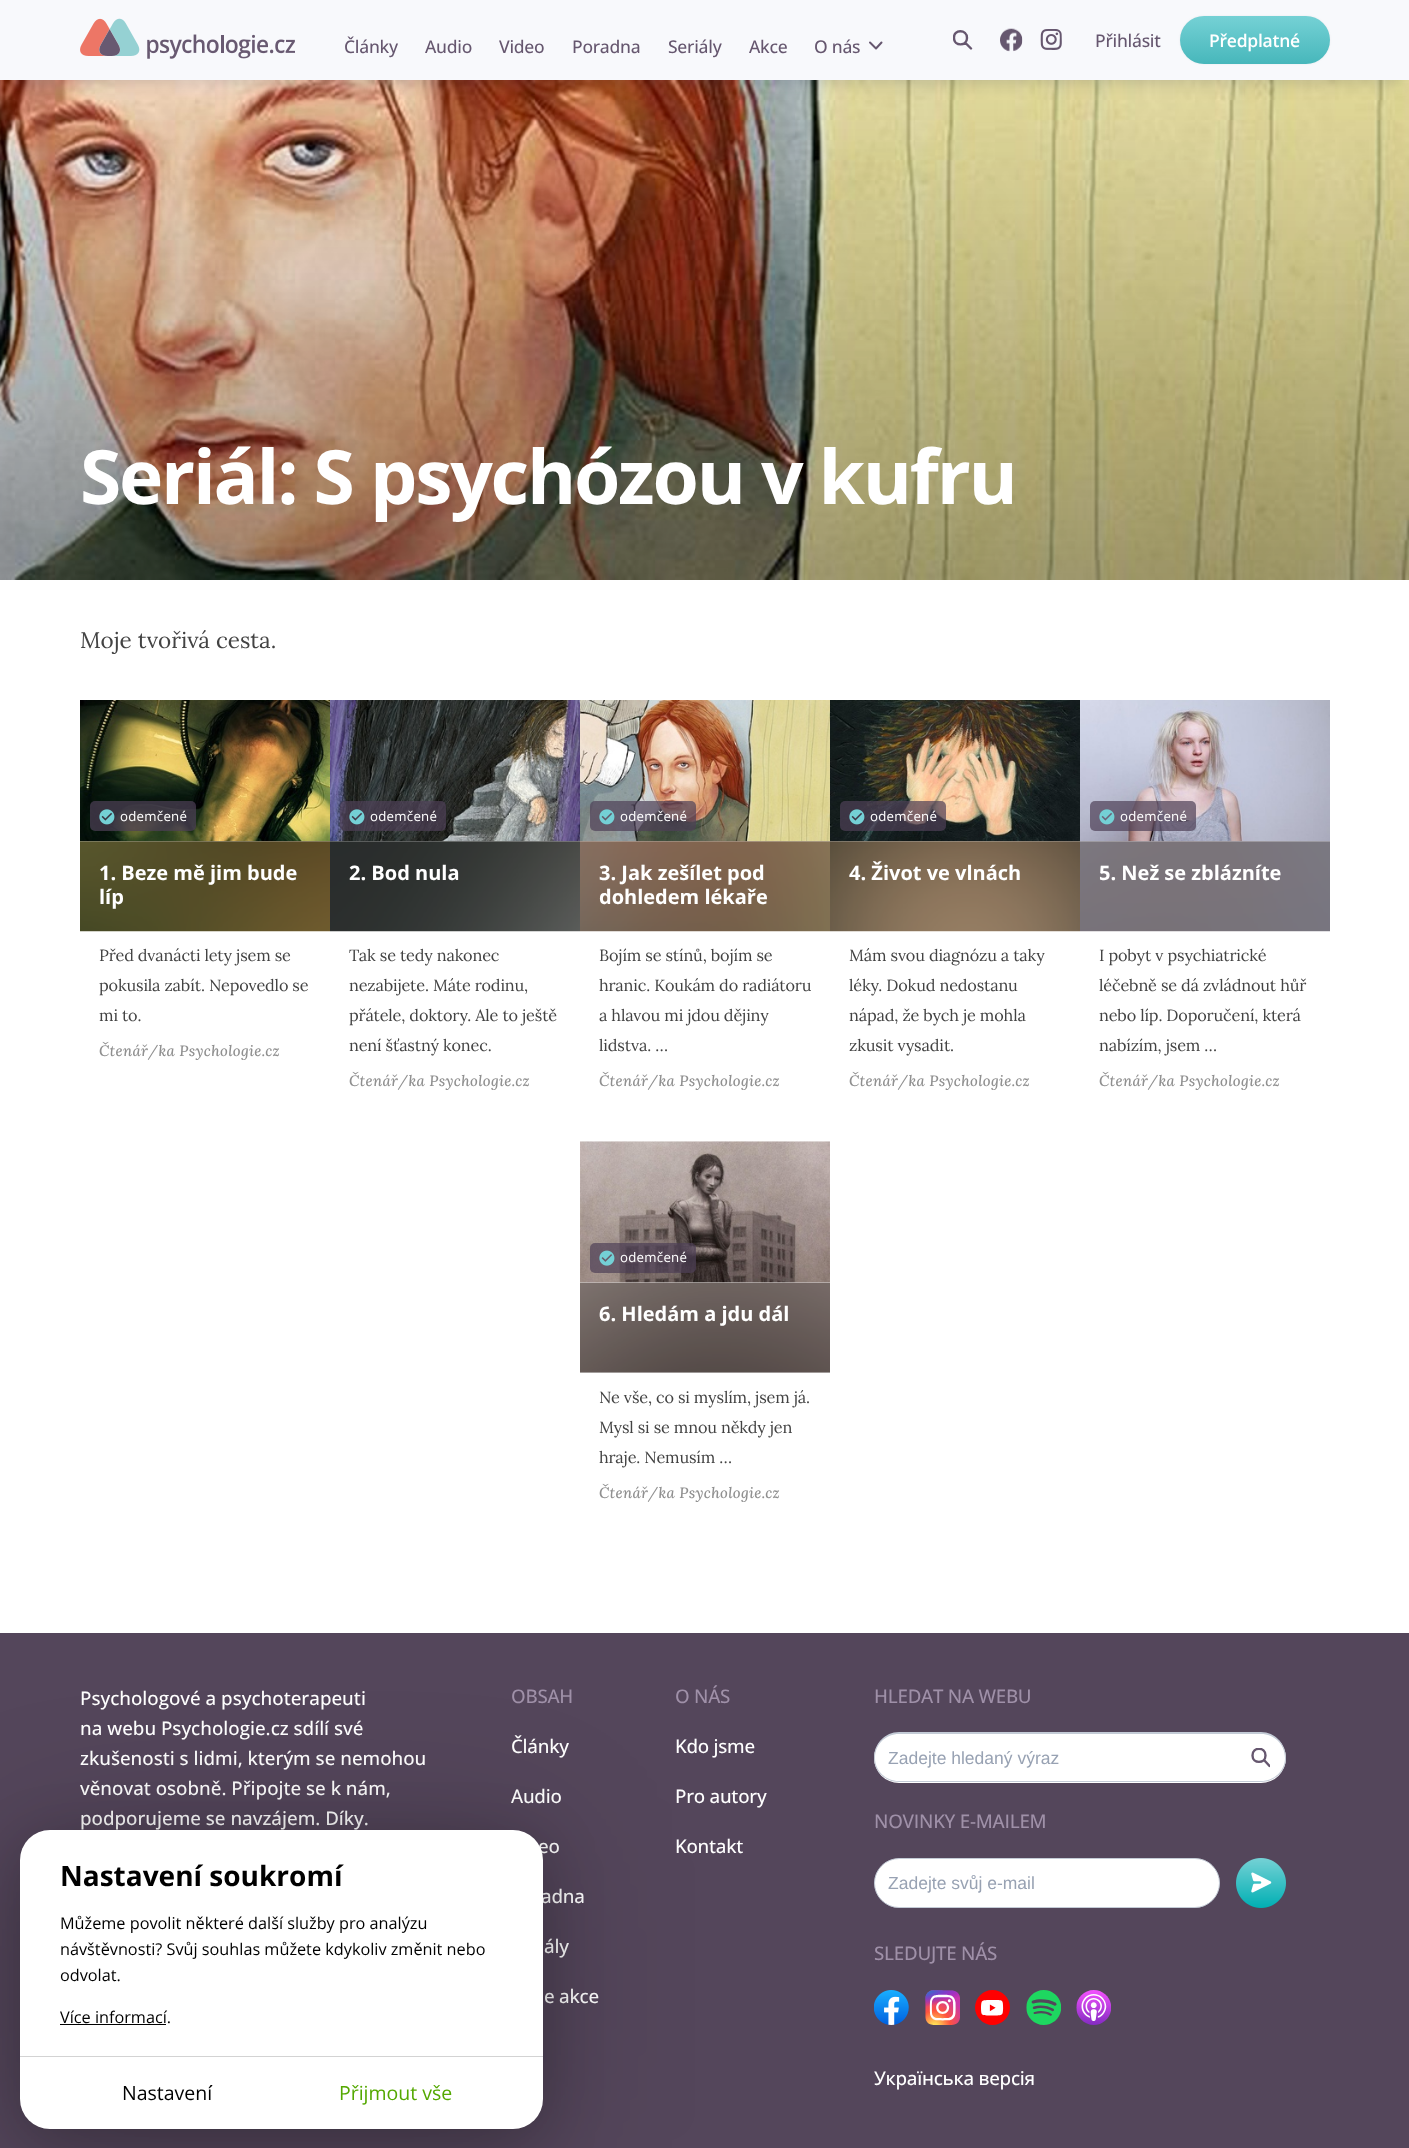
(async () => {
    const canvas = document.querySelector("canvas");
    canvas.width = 1409;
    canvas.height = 2148;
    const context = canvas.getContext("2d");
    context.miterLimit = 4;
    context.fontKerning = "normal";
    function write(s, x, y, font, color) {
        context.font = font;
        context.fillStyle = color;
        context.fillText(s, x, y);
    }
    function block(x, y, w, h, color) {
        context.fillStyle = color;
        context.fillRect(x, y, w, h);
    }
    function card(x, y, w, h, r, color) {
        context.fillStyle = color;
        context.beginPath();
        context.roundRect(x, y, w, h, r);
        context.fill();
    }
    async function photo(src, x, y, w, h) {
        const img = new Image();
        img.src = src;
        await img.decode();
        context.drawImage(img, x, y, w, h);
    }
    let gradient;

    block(0, 0, 1409, 2148, "rgb(255, 255, 255)");
    block(580, 1372, 250, 1, "rgb(227, 227, 227)");
    await photo("media/4.png", 0, 80, 1409, 500);
    context.fillStyle = "rgba(24, 39, 75, 0.24)";
    context.filter = "blur(9px)";
    context.beginPath();
    context.rect(8, 15, 1395, 65);
    context.fill();
    context.filter = "none";
    block(0, 0, 1409, 80, "rgb(248, 249, 252)");
    await photo("media/1.png", 80, 18, 215, 41);
    context.letterSpacing = "-0.25px";
    write("Články", 344, 53, "500 17.5px Open Sans", "rgb(102, 87, 111)");
    write("Audio", 425, 53, "500 17.5px Open Sans", "rgb(102, 87, 111)");
    write("Video", 499, 53, "500 17.5px Open Sans", "rgb(102, 87, 111)");
    write("Poradna", 572, 53, "500 17.5px Open Sans", "rgb(102, 87, 111)");
    write("Seriály", 668, 53, "500 17.5px Open Sans", "rgb(102, 87, 111)");
    write("Akce", 749, 53, "500 17.5px Open Sans", "rgb(102, 87, 111)");
    write("O nás", 814, 53, "500 17.5px Open Sans", "rgb(102, 87, 111)");
    context.beginPath();
    context.moveTo(881.5, 42.5);
    context.lineTo(876, 48.5);
    context.lineTo(870, 42.5);
    context.strokeStyle = "rgb(102, 87, 111)";
    context.lineWidth = 2;
    context.lineCap = "round";
    context.lineJoin = "round";
    context.stroke();
    context.save();
    context.beginPath();
    context.rect(953, 30, 20, 20);
    context.clip();
    context.beginPath();
    context.moveTo(971, 48.5);
    context.lineTo(965, 42.5);
    context.moveTo(967, 38);
    context.bezierCurveTo(967, 46.5, 954, 46.5, 954, 38);
    context.bezierCurveTo(953.5, 29, 967, 29, 967, 38);
    context.closePath();
    context.lineWidth = 2.4;
    context.stroke();
    context.restore();
    await photo("media/2.png", 1000, 28, 23, 24);
    await photo("media/3.png", 1040, 29, 22, 21);
    write("Přihlásit", 1095, 47, "500 17.5px Open Sans", "rgb(102, 87, 111)");
    context.fillStyle = "rgba(0, 0, 0, 0.06)";
    context.filter = "blur(1px)";
    context.beginPath();
    context.roundRect(1180, 16, 150, 48, 24);
    context.fill();
    context.filter = "none";
    gradient = context.createLinearGradient(1255, 16, 1255, 64);
    gradient.addColorStop(0, "rgb(117, 209, 213)");
    gradient.addColorStop(1, "rgb(71, 183, 187)");
    context.fillStyle = gradient;
    context.beginPath();
    context.roundRect(1180, 16, 150, 48, 24);
    context.fill();
    write("Předplatné", 1209, 47, "600 17.5px Open Sans", "rgb(255, 255, 255)");
    context.letterSpacing = "-2.25px";
    write("Seriál: S psychózou v kufru", 80, 504, "bold 75px Open Sans", "rgb(255, 255, 255)");
    context.letterSpacing = "0px";
    write("Moje tvořivá cesta.", 80, 648, "22.5px Lora", "rgb(67, 67, 67)");
    await photo("media/7.png", 80, 841, 250, 91);
    await photo("media/5.png", 80, 700, 250, 142);
    card(90, 801, 106, 30, 5, "rgba(78, 64, 87, 0.7)");
    await photo("media/6.png", 99, 809, 16, 16);
    context.letterSpacing = "0.25px";
    write("odemčené", 120, 821, "13.25px Open Sans", "rgb(255, 255, 255)");
    context.letterSpacing = "0px";
    write("1. Beze mě jim bude", 99, 880, "bold 20px Open Sans", "rgb(255, 255, 255)");
    write("líp", 99, 904, "bold 20px Open Sans", "rgb(255, 255, 255)");
    context.letterSpacing = "-0.15px";
    write("Před dvanácti lety jsem se", 99, 961, "16.25px Lora", "rgb(67, 67, 67)");
    write("pokusila zabít. Nepovedlo se", 99, 991, "16.25px Lora", "rgb(67, 67, 67)");
    write("mi to.", 99, 1021, "16.25px Lora", "rgb(67, 67, 67)");
    context.letterSpacing = "0.3px";
    write("Čtenář/ka Psychologie.cz", 99, 1056, "italic 500 15px Lora", "rgb(144, 144, 144)");
    await photo("media/10.png", 330, 841, 250, 91);
    await photo("media/8.png", 330, 700, 250, 142);
    card(340, 801, 106, 30, 5, "rgba(78, 64, 87, 0.7)");
    await photo("media/9.png", 349, 809, 16, 16);
    context.letterSpacing = "0.25px";
    write("odemčené", 370, 821, "13.25px Open Sans", "rgb(255, 255, 255)");
    context.letterSpacing = "0px";
    write("2. Bod nula", 349, 880, "bold 20px Open Sans", "rgb(255, 255, 255)");
    context.letterSpacing = "-0.15px";
    write("Tak se tedy nakonec", 349, 961, "16.25px Lora", "rgb(67, 67, 67)");
    write("nezabijete. Máte rodinu,", 349, 991, "16.25px Lora", "rgb(67, 67, 67)");
    write("přátele, doktory. Ale to ještě", 349, 1021, "16.25px Lora", "rgb(67, 67, 67)");
    write("není šťastný konec.", 349, 1051, "16.25px Lora", "rgb(67, 67, 67)");
    context.letterSpacing = "0.3px";
    write("Čtenář/ka Psychologie.cz", 349, 1086, "italic 500 15px Lora", "rgb(144, 144, 144)");
    await photo("media/13.png", 580, 841, 250, 91);
    await photo("media/11.png", 580, 700, 250, 142);
    card(590, 801, 106, 30, 5, "rgba(78, 64, 87, 0.7)");
    await photo("media/12.png", 599, 809, 16, 16);
    context.letterSpacing = "0.25px";
    write("odemčené", 620, 821, "13.25px Open Sans", "rgb(255, 255, 255)");
    context.letterSpacing = "0px";
    write("3. Jak zešílet pod", 599, 880, "bold 20px Open Sans", "rgb(255, 255, 255)");
    write("dohledem lékaře", 599, 904, "bold 20px Open Sans", "rgb(255, 255, 255)");
    context.letterSpacing = "-0.15px";
    write("Bojím se stínů, bojím se", 599, 961, "16.25px Lora", "rgb(67, 67, 67)");
    write("hranic. Koukám do radiátoru", 599, 991, "16.25px Lora", "rgb(67, 67, 67)");
    write("a hlavou mi jdou dějiny", 599, 1021, "16.25px Lora", "rgb(67, 67, 67)");
    write("lidstva. …", 599, 1051, "16.25px Lora", "rgb(67, 67, 67)");
    context.letterSpacing = "0.3px";
    write("Čtenář/ka Psychologie.cz", 599, 1086, "italic 500 15px Lora", "rgb(144, 144, 144)");
    await photo("media/16.png", 830, 841, 250, 91);
    await photo("media/14.png", 830, 700, 250, 142);
    card(840, 801, 106, 30, 5, "rgba(78, 64, 87, 0.7)");
    await photo("media/15.png", 849, 809, 16, 16);
    context.letterSpacing = "0.25px";
    write("odemčené", 870, 821, "13.25px Open Sans", "rgb(255, 255, 255)");
    context.letterSpacing = "0px";
    write("4. Život ve vlnách", 849, 880, "bold 20px Open Sans", "rgb(255, 255, 255)");
    context.letterSpacing = "-0.15px";
    write("Mám svou diagnózu a taky", 849, 961, "16.25px Lora", "rgb(67, 67, 67)");
    write("léky. Dokud nedostanu", 849, 991, "16.25px Lora", "rgb(67, 67, 67)");
    write("nápad, že bych je mohla", 849, 1021, "16.25px Lora", "rgb(67, 67, 67)");
    write("zkusit vysadit.", 849, 1051, "16.25px Lora", "rgb(67, 67, 67)");
    context.letterSpacing = "0.3px";
    write("Čtenář/ka Psychologie.cz", 849, 1086, "italic 500 15px Lora", "rgb(144, 144, 144)");
    await photo("media/19.png", 1080, 841, 250, 91);
    await photo("media/17.png", 1080, 700, 250, 142);
    card(1090, 801, 106, 30, 5, "rgba(78, 64, 87, 0.7)");
    await photo("media/18.png", 1099, 809, 16, 16);
    context.letterSpacing = "0.25px";
    write("odemčené", 1120, 821, "13.25px Open Sans", "rgb(255, 255, 255)");
    context.letterSpacing = "0px";
    write("5. Než se zblázníte", 1099, 880, "bold 20px Open Sans", "rgb(255, 255, 255)");
    context.letterSpacing = "-0.15px";
    write("I pobyt v psychiatrické", 1099, 961, "16.25px Lora", "rgb(67, 67, 67)");
    write("léčebně se dá zvládnout hůř", 1099, 991, "16.25px Lora", "rgb(67, 67, 67)");
    write("nebo líp. Doporučení, která", 1099, 1021, "16.25px Lora", "rgb(67, 67, 67)");
    write("nabízím, jsem …", 1099, 1051, "16.25px Lora", "rgb(67, 67, 67)");
    context.letterSpacing = "0.3px";
    write("Čtenář/ka Psychologie.cz", 1099, 1086, "italic 500 15px Lora", "rgb(144, 144, 144)");
    await photo("media/22.png", 580, 1282, 250, 91);
    await photo("media/20.png", 580, 1141, 250, 142);
    card(590, 1243, 106, 30, 5, "rgba(78, 64, 87, 0.7)");
    await photo("media/21.png", 599, 1250, 16, 16);
    context.letterSpacing = "0.25px";
    write("odemčené", 620, 1262, "13.25px Open Sans", "rgb(255, 255, 255)");
    context.letterSpacing = "0px";
    write("6. Hledám a jdu dál", 599, 1321, "bold 20px Open Sans", "rgb(255, 255, 255)");
    context.letterSpacing = "-0.15px";
    write("Ne vše, co si myslím, jsem já.", 599, 1403, "16.25px Lora", "rgb(67, 67, 67)");
    write("Mysl si se mnou někdy jen", 599, 1433, "16.25px Lora", "rgb(67, 67, 67)");
    write("hraje. Nemusím …", 599, 1463, "16.25px Lora", "rgb(67, 67, 67)");
    context.letterSpacing = "0.3px";
    write("Čtenář/ka Psychologie.cz", 599, 1498, "italic 500 15px Lora", "rgb(144, 144, 144)");
    block(0, 1633, 1409, 515, "rgb(84, 70, 91)");
    context.letterSpacing = "0px";
    write("Psychologové a psychoterapeuti", 80, 1705, "500 18.75px Open Sans", "rgb(255, 255, 255)");
    write("na webu Psychologie.cz sdílí své", 80, 1735, "500 18.75px Open Sans", "rgb(255, 255, 255)");
    write("zkušenosti s lidmi, kterým se nemohou", 80, 1765, "500 18.75px Open Sans", "rgb(255, 255, 255)");
    write("věnovat osobně. Připojte se k nám,", 80, 1795, "500 18.75px Open Sans", "rgb(255, 255, 255)");
    write("podporujeme se navzájem. Díky.", 80, 1825, "500 18.75px Open Sans", "rgb(255, 255, 255)");
    context.letterSpacing = "-0.25px";
    write("OBSAH", 511, 1703, "500 18.75px Open Sans", "rgb(159, 144, 168)");
    write("Články", 511, 1753, "500 18.75px Open Sans", "rgb(255, 255, 255)");
    write("Audio", 511, 1803, "500 18.75px Open Sans", "rgb(255, 255, 255)");
    write("eo", 538, 1853, "500 18.75px Open Sans", "rgb(255, 255, 255)");
    write("adna", 541, 1903, "500 18.75px Open Sans", "rgb(255, 255, 255)");
    write("ály", 544, 1953, "500 18.75px Open Sans", "rgb(255, 255, 255)");
    write("e akce", 544, 2003, "500 18.75px Open Sans", "rgb(255, 255, 255)");
    write("O NÁS", 675, 1703, "500 18.75px Open Sans", "rgb(159, 144, 168)");
    write("Kdo jsme", 675, 1753, "500 18.75px Open Sans", "rgb(255, 255, 255)");
    write("Pro autory", 675, 1803, "500 18.75px Open Sans", "rgb(255, 255, 255)");
    write("Kontakt", 675, 1853, "500 18.75px Open Sans", "rgb(255, 255, 255)");
    write("HLEDAT NA WEBU", 874, 1703, "500 18.75px Open Sans", "rgb(159, 144, 168)");
    context.fillStyle = "rgb(255, 255, 255)";
    context.beginPath();
    context.roundRect(874, 1733, 362, 50, [25, 0, 0, 25]);
    context.fill();
    context.fillStyle = "rgb(195, 203, 214)";
    context.beginPath();
    context.moveTo(899, 1732);
    context.lineTo(1236, 1732);
    context.lineTo(1236, 1782);
    context.lineTo(899, 1782);
    context.bezierCurveTo(885, 1782, 874, 1771, 874, 1758);
    context.bezierCurveTo(874, 1744, 885, 1732, 899, 1732);
    context.closePath();
    context.moveTo(899, 1734);
    context.lineTo(1236, 1734);
    context.lineTo(1236, 1781);
    context.lineTo(899, 1781);
    context.bezierCurveTo(886, 1781, 875, 1771, 875, 1758);
    context.bezierCurveTo(875, 1744, 886, 1734, 899, 1734);
    context.closePath();
    context.fill("evenodd");
    context.letterSpacing = "0px";
    write("Zadejte hledaný výraz", 888, 1764, "17.5px Liberation Sans", "rgb(152, 162, 179)");
    context.fillStyle = "rgb(255, 255, 255)";
    context.beginPath();
    context.roundRect(1236, 1733, 50, 50, [0, 25, 25, 0]);
    context.fill();
    context.save();
    context.beginPath();
    context.rect(1251, 1748, 19, 20);
    context.clip();
    context.beginPath();
    context.moveTo(1269.5, 1766);
    context.lineTo(1264, 1760);
    context.moveTo(1265.5, 1755.5);
    context.bezierCurveTo(1265.5, 1764, 1252.5, 1764, 1252.5, 1755.5);
    context.bezierCurveTo(1252.5, 1746.5, 1265.5, 1746.5, 1265.5, 1755.5);
    context.closePath();
    context.lineWidth = 2.4;
    context.stroke();
    context.restore();
    context.fillStyle = "rgb(195, 203, 214)";
    context.beginPath();
    context.moveTo(1236, 1732);
    context.lineTo(1261, 1732);
    context.bezierCurveTo(1275, 1732, 1286, 1744, 1286, 1758);
    context.bezierCurveTo(1286, 1771, 1275, 1782, 1261, 1782);
    context.lineTo(1236, 1782);
    context.closePath();
    context.moveTo(1236, 1734);
    context.lineTo(1261, 1734);
    context.bezierCurveTo(1274, 1734, 1285, 1744, 1285, 1758);
    context.bezierCurveTo(1285, 1771, 1274, 1781, 1261, 1781);
    context.lineTo(1236, 1781);
    context.closePath();
    context.fill("evenodd");
    context.letterSpacing = "-0.25px";
    write("NOVINKY E-MAILEM", 874, 1828, "500 18.75px Open Sans", "rgb(159, 144, 168)");
    context.fillStyle = "rgb(255, 255, 255)";
    context.beginPath();
    context.roundRect(874.5, 1858.5, 345, 49, 24.5);
    context.fill();
    context.strokeStyle = "rgb(195, 203, 214)";
    context.lineWidth = 1;
    context.lineJoin = "miter";
    context.stroke();
    context.letterSpacing = "0px";
    write("Zadejte svůj e-mail", 888, 1889, "17.5px Liberation Sans", "rgb(152, 162, 179)");
    await photo("media/23.png", 1236, 1858, 50, 50);
    context.letterSpacing = "-0.25px";
    write("SLEDUJTE NÁS", 874, 1960, "500 18.75px Open Sans", "rgb(159, 144, 168)");
    await photo("media/24.png", 874, 1990, 35, 35);
    await photo("media/25.png", 925, 1990, 35, 35);
    await photo("media/26.png", 975, 1990, 35, 35);
    await photo("media/27.png", 1026, 1990, 35, 35);
    await photo("media/28.png", 1076, 1990, 35, 35);
    write("Українська версія", 874, 2085, "500 18.75px Open Sans", "rgb(255, 255, 255)");
    context.fillStyle = "rgba(0, 0, 0, 0.2)";
    context.filter = "blur(73px)";
    context.beginPath();
    context.roundRect(20, 1843, 523, 298, 30);
    context.fill();
    context.filter = "none";
    context.filter = "blur(29.5px)";
    context.beginPath();
    context.roundRect(20, 1843, 523, 298, 30);
    context.fill();
    context.filter = "none";
    card(20, 1830, 523, 299, 30, "rgb(255, 255, 255)");
    context.letterSpacing = "0px";
    write("Nastavení soukromí", 60, 1886, "bold 28px Open Sans", "rgb(0, 0, 0)");
    write("Můžeme povolit některé další služby pro analýzu", 60, 1929, "16.25px Open Sans", "rgb(0, 0, 0)");
    write("návštěvnosti? Svůj souhlas můžete kdykoliv změnit nebo", 60, 1955, "16.25px Open Sans", "rgb(0, 0, 0)");
    write("odvolat.", 60, 1981, "16.25px Open Sans", "rgb(0, 0, 0)");
    write("Více informací.", 60, 2023, "16.25px Open Sans", "rgb(0, 0, 0)");
    block(60, 2024, 106, 1, "rgb(0, 0, 0)");
    block(20, 2056, 523, 1, "rgb(211, 211, 211)");
    write("Nastavení", 122, 2100, "19.5px Open Sans", "rgb(0, 0, 0)");
    write("Přijmout vše", 339, 2100, "19.5px Open Sans", "rgb(84, 168, 0)");
})();
